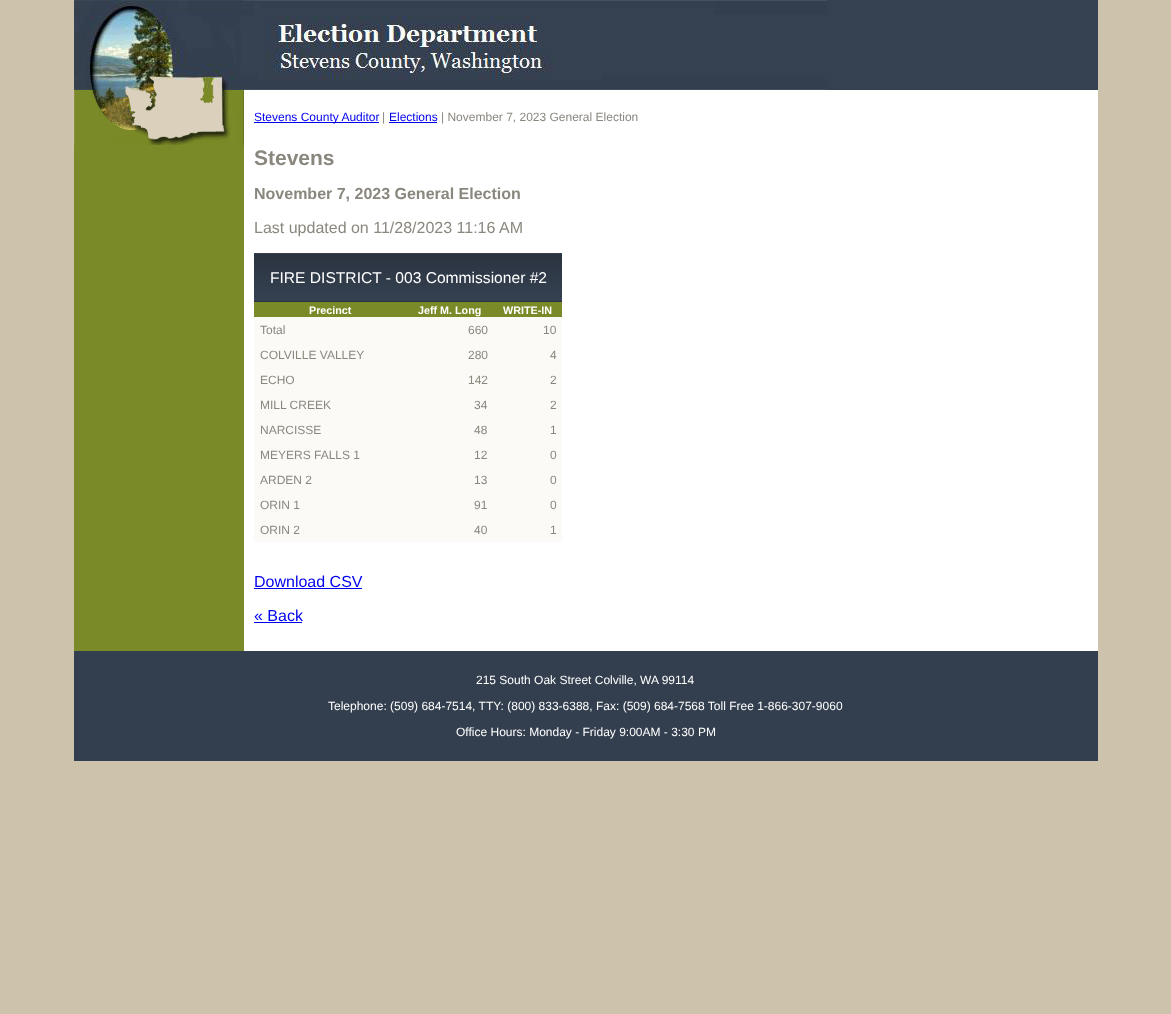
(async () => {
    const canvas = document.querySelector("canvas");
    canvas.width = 1171;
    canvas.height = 1014;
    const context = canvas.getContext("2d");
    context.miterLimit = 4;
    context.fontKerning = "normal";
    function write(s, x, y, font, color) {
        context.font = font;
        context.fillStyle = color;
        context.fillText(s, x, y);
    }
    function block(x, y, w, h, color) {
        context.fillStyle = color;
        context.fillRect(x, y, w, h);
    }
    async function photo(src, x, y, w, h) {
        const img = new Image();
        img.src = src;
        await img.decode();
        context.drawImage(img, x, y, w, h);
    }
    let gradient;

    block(0, 0, 1171, 1014, "rgb(205, 194, 171)");
    await photo("media/1.png", 74, 0, 1024, 90);
    await photo("media/2.png", 74, 90, 1024, 561);
    await photo("media/3.png", 74, 90, 170, 55);
    block(254, 122, 125, 1, "rgb(0, 0, 238)");
    write("Stevens County Auditor", 254, 121, "12px Liberation Sans", "rgb(0, 0, 238)");
    write("|", 382, 121, "12px Liberation Sans", "rgb(138, 135, 126)");
    write("Elections", 389, 121, "12px Liberation Sans", "rgb(0, 0, 238)");
    block(389, 122, 48, 1, "rgb(0, 0, 238)");
    write("| November 7, 2023 General Election", 441, 121, "12px Liberation Sans", "rgb(138, 135, 126)");
    write("Stevens", 254, 165, "bold 21px Liberation Sans", "rgb(138, 135, 126)");
    write("November 7, 2023 General Election", 254, 199, "bold 16px Liberation Sans", "rgb(138, 135, 126)");
    write("Last updated on 11/28/2023 11:16 AM", 254, 233, "16px Liberation Sans", "rgb(138, 135, 126)");
    block(254, 301, 308, 1, "rgb(42, 51, 64)");
    gradient = context.createLinearGradient(255, 207, 255, 254);
    gradient.addColorStop(0, "rgb(42, 51, 64)");
    gradient.addColorStop(1, "rgb(54, 66, 82)");
    context.fillStyle = gradient;
    context.fillRect(254, 253, 308, 1);
    gradient = context.createLinearGradient(255, 254, 255, 301);
    gradient.addColorStop(0, "rgb(42, 51, 64)");
    gradient.addColorStop(1, "rgb(54, 66, 82)");
    context.fillStyle = gradient;
    context.fillRect(254, 254, 308, 47);
    write("FIRE DISTRICT - 003 Commissioner #2", 270, 283, "15.6px Liberation Sans", "rgb(255, 255, 255)");
    block(254, 302, 308, 15, "rgb(123, 138, 41)");
    write("Precinct", 309, 314, "bold 10.75px Liberation Sans", "rgb(255, 255, 255)");
    write("Jeff M. Long", 418, 314, "bold 10.75px Liberation Sans", "rgb(255, 255, 255)");
    write("WRITE-IN", 503, 314, "bold 10.75px Liberation Sans", "rgb(255, 255, 255)");
    block(254, 317, 308, 25, "rgb(251, 250, 247)");
    write("Total", 260, 334, "12px Liberation Sans", "rgb(138, 135, 126)");
    write("660", 468, 334, "12px Liberation Sans", "rgb(138, 135, 126)");
    write("10", 543, 334, "12px Liberation Sans", "rgb(138, 135, 126)");
    block(254, 342, 308, 25, "rgb(251, 250, 247)");
    write("COLVILLE VALLEY", 260, 359, "12px Liberation Sans", "rgb(138, 135, 126)");
    write("280", 468, 359, "12px Liberation Sans", "rgb(138, 135, 126)");
    write("4", 550, 359, "12px Liberation Sans", "rgb(138, 135, 126)");
    block(254, 367, 308, 25, "rgb(251, 250, 247)");
    write("ECHO", 260, 384, "12px Liberation Sans", "rgb(138, 135, 126)");
    write("142", 468, 384, "12px Liberation Sans", "rgb(138, 135, 126)");
    write("2", 550, 384, "12px Liberation Sans", "rgb(138, 135, 126)");
    block(254, 392, 308, 25, "rgb(251, 250, 247)");
    write("MILL CREEK", 260, 409, "12px Liberation Sans", "rgb(138, 135, 126)");
    write("34", 474, 409, "12px Liberation Sans", "rgb(138, 135, 126)");
    write("2", 550, 409, "12px Liberation Sans", "rgb(138, 135, 126)");
    block(254, 417, 308, 25, "rgb(251, 250, 247)");
    write("NARCISSE", 260, 434, "12px Liberation Sans", "rgb(138, 135, 126)");
    write("48", 474, 434, "12px Liberation Sans", "rgb(138, 135, 126)");
    write("1", 550, 434, "12px Liberation Sans", "rgb(138, 135, 126)");
    block(254, 442, 308, 25, "rgb(251, 250, 247)");
    write("MEYERS FALLS 1", 260, 459, "12px Liberation Sans", "rgb(138, 135, 126)");
    write("12", 474, 459, "12px Liberation Sans", "rgb(138, 135, 126)");
    write("0", 550, 459, "12px Liberation Sans", "rgb(138, 135, 126)");
    block(254, 467, 308, 25, "rgb(251, 250, 247)");
    write("ARDEN 2", 260, 484, "12px Liberation Sans", "rgb(138, 135, 126)");
    write("13", 474, 484, "12px Liberation Sans", "rgb(138, 135, 126)");
    write("0", 550, 484, "12px Liberation Sans", "rgb(138, 135, 126)");
    block(254, 492, 308, 25, "rgb(251, 250, 247)");
    write("ORIN 1", 260, 509, "12px Liberation Sans", "rgb(138, 135, 126)");
    write("91", 474, 509, "12px Liberation Sans", "rgb(138, 135, 126)");
    write("0", 550, 509, "12px Liberation Sans", "rgb(138, 135, 126)");
    block(254, 517, 308, 25, "rgb(251, 250, 247)");
    write("ORIN 2", 260, 534, "12px Liberation Sans", "rgb(138, 135, 126)");
    write("40", 474, 534, "12px Liberation Sans", "rgb(138, 135, 126)");
    write("1", 550, 534, "12px Liberation Sans", "rgb(138, 135, 126)");
    write("Download CSV", 254, 587, "16px Liberation Sans", "rgb(0, 0, 238)");
    block(254, 588, 108, 1, "rgb(0, 0, 238)");
    write("« Back", 254, 621, "16px Liberation Sans", "rgb(0, 0, 238)");
    block(254, 622, 48, 1, "rgb(0, 0, 238)");
    block(74, 651, 1024, 110, "rgb(51, 63, 78)");
    write("215 South Oak Street Colville, WA 99114", 476, 684, "12px Liberation Sans", "rgb(255, 255, 255)");
    write("Telephone: (509) 684-7514, TTY: (800) 833-6388, Fax: (509) 684-7568 Toll Free 1-866-307-9060", 328, 710, "12px Liberation Sans", "rgb(255, 255, 255)");
    write("Office Hours: Monday - Friday 9:00AM - 3:30 PM", 456, 736, "12px Liberation Sans", "rgb(255, 255, 255)");
})();
